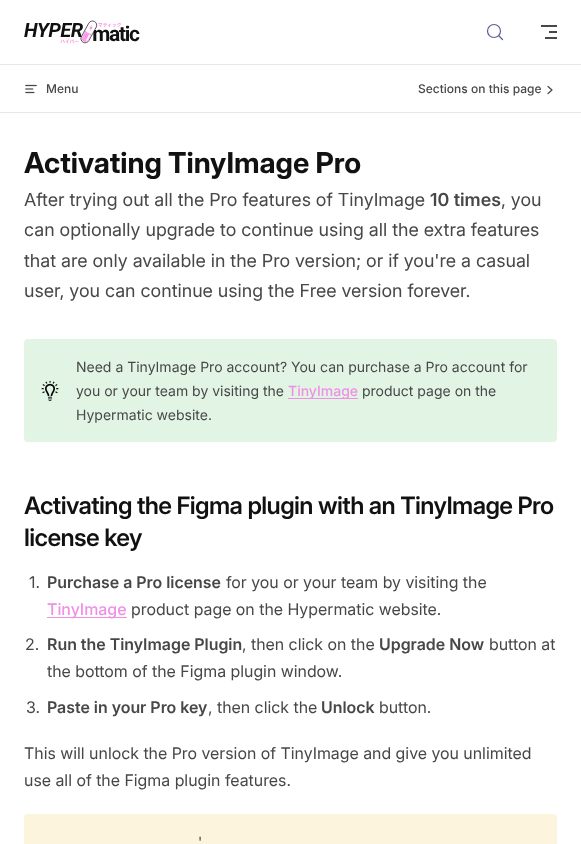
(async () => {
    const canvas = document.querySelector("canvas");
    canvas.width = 581;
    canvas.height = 844;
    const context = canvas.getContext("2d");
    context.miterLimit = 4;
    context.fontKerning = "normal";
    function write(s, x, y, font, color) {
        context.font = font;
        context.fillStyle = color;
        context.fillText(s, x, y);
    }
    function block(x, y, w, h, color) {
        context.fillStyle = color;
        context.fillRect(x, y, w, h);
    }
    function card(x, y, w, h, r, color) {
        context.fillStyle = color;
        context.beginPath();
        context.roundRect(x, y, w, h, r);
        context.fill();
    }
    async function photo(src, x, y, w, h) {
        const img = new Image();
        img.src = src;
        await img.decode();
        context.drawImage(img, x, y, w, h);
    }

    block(0, 0, 581, 844, "rgb(255, 255, 255)");
    block(0, 64, 581, 1, "rgb(233, 230, 233)");
    await photo("media/1.png", 24, 20, 116, 24);
    context.beginPath();
    context.moveTo(502.5, 39.5);
    context.lineTo(499, 36);
    context.strokeStyle = "rgb(90, 94, 154)";
    context.lineWidth = 1.3;
    context.lineCap = "round";
    context.lineJoin = "round";
    context.stroke();
    context.beginPath();
    context.arc(494, 31, 6.5, 0, Math.PI * 2);
    context.lineWidth = 1.2;
    context.stroke();
    block(541, 25, 16, 2, "rgb(71, 71, 71)");
    block(549, 31, 8, 2, "rgb(71, 71, 71)");
    block(545, 37, 12, 2, "rgb(71, 71, 71)");
    block(0, 112, 581, 1, "rgb(233, 230, 233)");
    await photo("media/2.png", 25, 84, 12, 10);
    write("Menu", 46, 93, "500 12px Inter", "rgb(71, 71, 71)");
    write("Sections on this page", 418, 93, "500 12px Inter", "rgb(71, 71, 71)");
    context.beginPath();
    context.moveTo(548, 93.5);
    context.lineTo(552, 90);
    context.lineTo(548, 86.5);
    context.strokeStyle = "rgb(71, 71, 71)";
    context.stroke();
    write("Activating TinyImage Pro", 24, 173, "bold 28.75px Inter", "rgb(17, 17, 17)");
    write("After trying out all the Pro features of TinyImage", 24, 206, "18px Inter", "rgb(71, 71, 71)");
    write("10 times", 430, 206, "600 18px Inter", "rgb(71, 71, 71)");
    write(", you", 501, 206, "18px Inter", "rgb(71, 71, 71)");
    write("can optionally upgrade to continue using all the extra features", 24, 236, "18px Inter", "rgb(71, 71, 71)");
    write("that are only available in the Pro version; or if you're a casual", 24, 267, "18px Inter", "rgb(71, 71, 71)");
    write("user, you can continue using the Free version forever.", 24, 297, "18px Inter", "rgb(71, 71, 71)");
    card(24, 339, 533, 103, 4, "rgb(226, 245, 228)");
    await photo("media/3.png", 41, 381, 18, 20);
    write("Need a TinyImage Pro account? You can purchase a Pro account for", 76, 372, "14px 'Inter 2'", "rgb(71, 71, 71)");
    write("you or your team by visiting the", 76, 396, "14px 'Inter 2'", "rgb(71, 71, 71)");
    block(288, 398, 70, 1, "rgb(240, 143, 230)");
    write("TinyImage", 288, 396, "500 14px Inter", "rgb(240, 143, 230)");
    write("product page on the", 362, 396, "14px 'Inter 2'", "rgb(71, 71, 71)");
    write("Hypermatic website.", 76, 420, "14px 'Inter 2'", "rgb(71, 71, 71)");
    context.letterSpacing = "-0.6px";
    write("Activating the Figma plugin with an TinyImage Pro", 24, 514, "600 24px 'Inter 2'", "rgb(17, 17, 17)");
    write("license key", 24, 546, "600 24px 'Inter 2'", "rgb(17, 17, 17)");
    context.letterSpacing = "0px";
    write("1.", 29, 588, "16px 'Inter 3'", "rgb(71, 71, 71)");
    write("Purchase a Pro license", 47, 588, "600 16px 'Inter 3'", "rgb(71, 71, 71)");
    write("for you or your team by visiting the", 226, 588, "16px 'Inter 3'", "rgb(71, 71, 71)");
    block(47, 617, 80, 1, "rgb(240, 143, 230)");
    write("TinyImage", 47, 615, "500 16px 'Inter 2'", "rgb(240, 143, 230)");
    write("product page on the Hypermatic website.", 131, 615, "16px 'Inter 3'", "rgb(71, 71, 71)");
    write("2.", 25, 650, "16px 'Inter 3'", "rgb(71, 71, 71)");
    write("Run the TinyImage Plugin", 47, 650, "600 16px 'Inter 3'", "rgb(71, 71, 71)");
    write(", then click on the", 242, 650, "16px 'Inter 3'", "rgb(71, 71, 71)");
    write("Upgrade Now", 379, 650, "600 16px 'Inter 3'", "rgb(71, 71, 71)");
    write("button at", 489, 650, "16px 'Inter 3'", "rgb(71, 71, 71)");
    write("the bottom of the Figma plugin window.", 47, 677, "16px 'Inter 3'", "rgb(71, 71, 71)");
    write("3.", 26, 713, "16px 'Inter 3'", "rgb(71, 71, 71)");
    write("Paste in your Pro key", 47, 713, "600 16px 'Inter 3'", "rgb(71, 71, 71)");
    write(", then click the", 208, 713, "16px 'Inter 3'", "rgb(71, 71, 71)");
    write("Unlock", 321, 713, "600 16px 'Inter 3'", "rgb(71, 71, 71)");
    write("button.", 379, 713, "16px 'Inter 3'", "rgb(71, 71, 71)");
    write("This will unlock the Pro version of TinyImage and give you unlimited", 24, 759, "16px 'Inter 3'", "rgb(71, 71, 71)");
    write("use all of the Figma plugin features.", 24, 786, "16px 'Inter 3'", "rgb(71, 71, 71)");
    card(24, 814, 533, 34, 4, "rgb(252, 244, 220)");
    write("'", 198, 847, "14px 'Inter 2'", "rgb(71, 71, 71)");
})();
